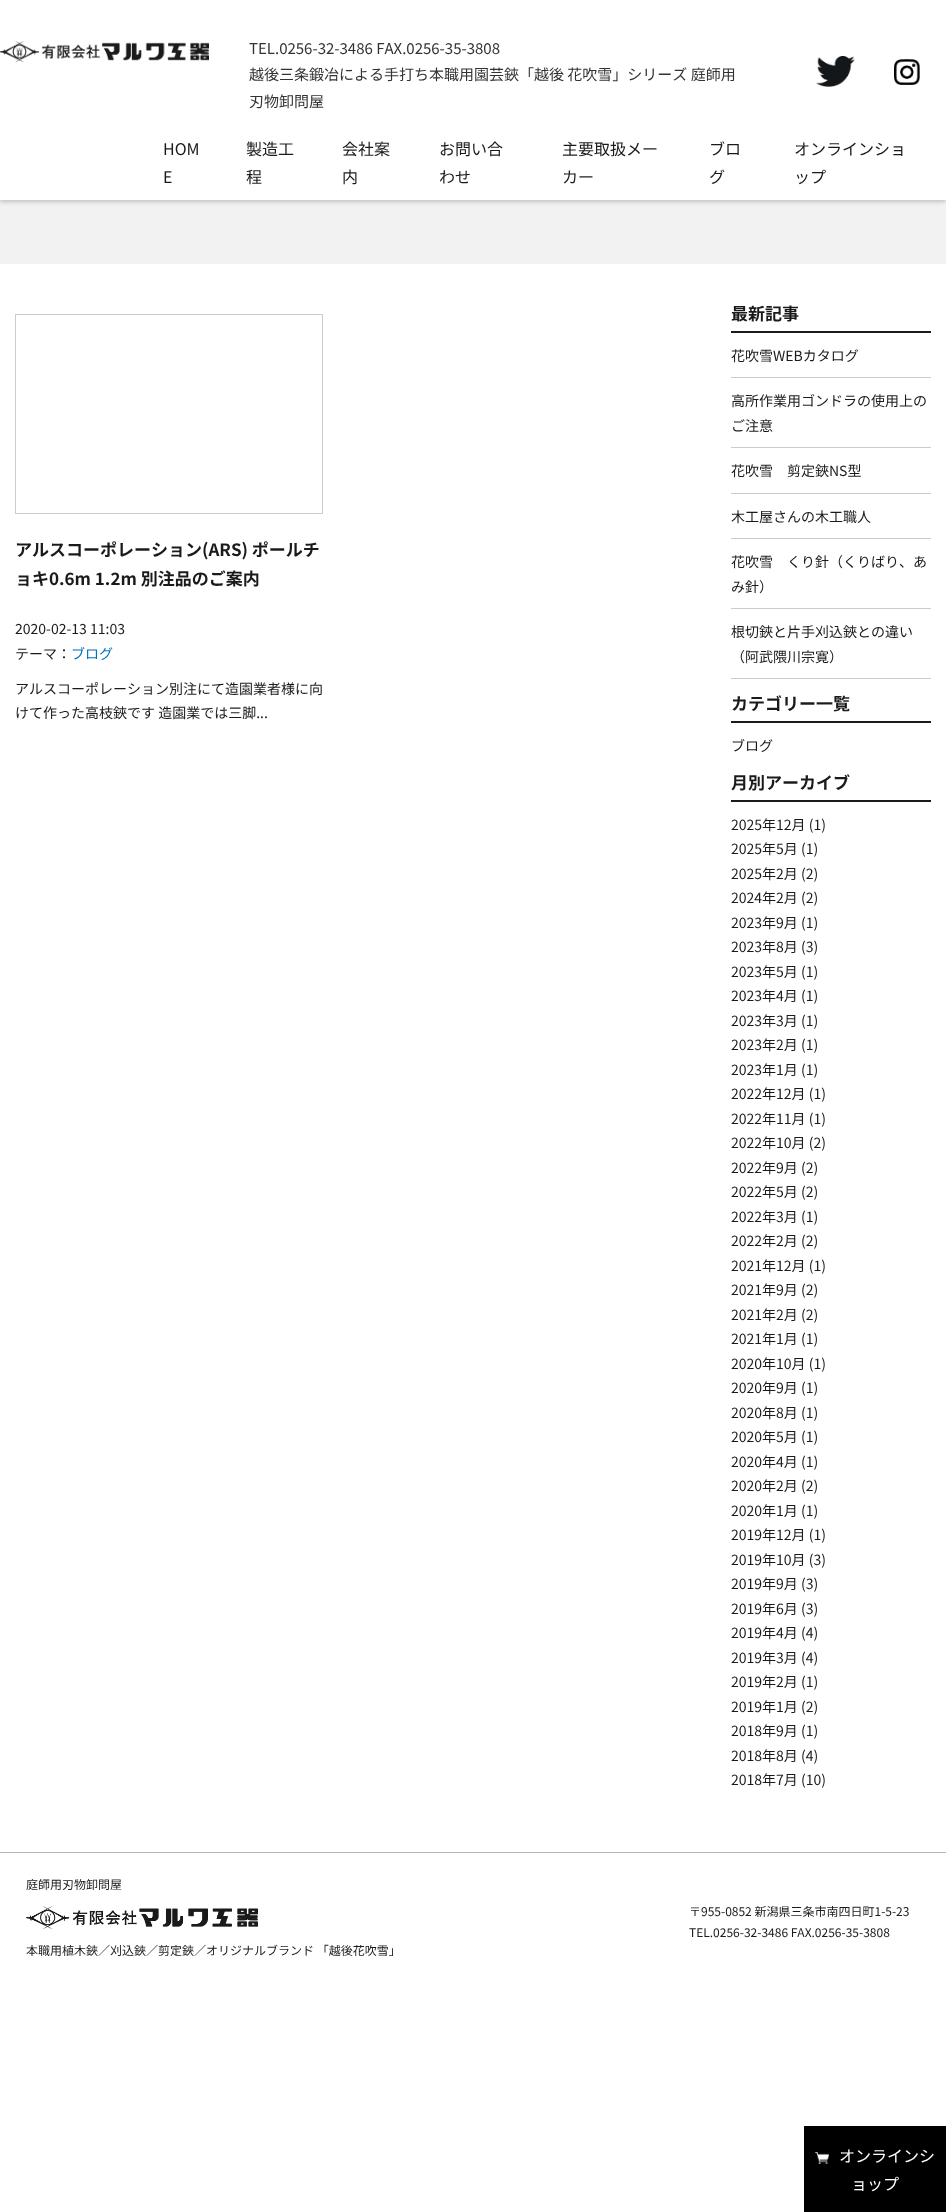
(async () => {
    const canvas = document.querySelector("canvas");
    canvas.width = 946;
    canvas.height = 2212;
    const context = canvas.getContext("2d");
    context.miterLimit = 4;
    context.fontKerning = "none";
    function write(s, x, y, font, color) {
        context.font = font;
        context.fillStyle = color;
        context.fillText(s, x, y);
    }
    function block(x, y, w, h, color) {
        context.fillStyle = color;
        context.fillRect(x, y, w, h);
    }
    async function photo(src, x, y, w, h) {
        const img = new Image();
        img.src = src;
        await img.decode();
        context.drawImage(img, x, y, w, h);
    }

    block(0, 0, 946, 2212, "rgb(255, 255, 255)");
    block(0, 200, 946, 64, "rgb(242, 242, 242)");
    context.fillStyle = "rgba(0, 0, 0, 0.2)";
    context.filter = "blur(2px)";
    context.beginPath();
    context.rect(0, 2, 946, 200);
    context.fill();
    context.filter = "none";
    block(0, 0, 946, 200, "rgb(255, 255, 255)");
    await photo("media/1.png", 0, 41, 209, 21);
    write("TEL.0256-32-3486 FAX.0256-35-3808", 249, 54, "15px Noto Sans JP", "rgb(51, 51, 51)");
    write("越後三条鍛冶による手打ち本職用園芸鋏「越後 花吹雪」シリーズ 庭師用", 249, 80, "15px Noto Sans JP", "rgb(51, 51, 51)");
    write("刃物卸問屋", 249, 107, "15px Noto Sans JP", "rgb(51, 51, 51)");
    await photo("media/2.png", 816, 56, 39, 31);
    await photo("media/3.png", 894, 59, 26, 26);
    write("HOM", 163, 155, "16px Noto Sans JP", "rgb(26, 26, 26)");
    write("E", 163, 183, "16px Noto Sans JP", "rgb(26, 26, 26)");
    write("製造工", 246, 155, "16px Noto Sans JP", "rgb(26, 26, 26)");
    write("程", 246, 183, "16px Noto Sans JP", "rgb(26, 26, 26)");
    write("会社案", 342, 155, "16px Noto Sans JP", "rgb(26, 26, 26)");
    write("内", 342, 183, "16px Noto Sans JP", "rgb(26, 26, 26)");
    write("お問い合", 439, 155, "16px Noto Sans JP", "rgb(26, 26, 26)");
    write("わせ", 439, 183, "16px Noto Sans JP", "rgb(26, 26, 26)");
    write("主要取扱メー", 562, 155, "16px Noto Sans JP", "rgb(26, 26, 26)");
    write("カー", 562, 183, "16px Noto Sans JP", "rgb(26, 26, 26)");
    write("ブロ", 709, 155, "16px Noto Sans JP", "rgb(26, 26, 26)");
    write("グ", 709, 183, "16px Noto Sans JP", "rgb(26, 26, 26)");
    write("オンラインショ", 794, 155, "16px Noto Sans JP", "rgb(26, 26, 26)");
    write("ップ", 794, 183, "16px Noto Sans JP", "rgb(26, 26, 26)");
    context.strokeStyle = "rgb(204, 204, 204)";
    context.strokeRect(15.5, 314.5, 307, 199);
    write("アルスコーポレーション(ARS) ポールチ", 15, 556, "bold 17px Noto Sans JP", "rgb(26, 26, 26)");
    write("ョキ0.6m 1.2m 別注品のご案内", 15, 585, "bold 17px Noto Sans JP", "rgb(26, 26, 26)");
    write("2020-02-13 11:03", 15, 634, "14px Noto Sans JP", "rgb(26, 26, 26)");
    write("テーマ：", 15, 659, "14px Noto Sans JP", "rgb(26, 26, 26)");
    write("ブログ", 71, 659, "14px Noto Sans JP", "rgb(0, 113, 188)");
    write("アルスコーポレーション別注にて造園業者様に向", 15, 694, "14px Noto Sans JP", "rgb(26, 26, 26)");
    write("けて作った高枝鋏です 造園業では三脚...", 15, 718, "14px Noto Sans JP", "rgb(26, 26, 26)");
    block(731, 331, 200, 2, "rgb(26, 26, 26)");
    write("最新記事", 731, 320, "bold 17px Noto Sans JP", "rgb(26, 26, 26)");
    block(731, 377, 200, 1, "rgb(204, 204, 204)");
    write("花吹雪WEBカタログ", 731, 361, "14px Noto Sans JP", "rgb(26, 26, 26)");
    block(731, 447, 200, 1, "rgb(204, 204, 204)");
    write("高所作業用ゴンドラの使用上の", 731, 406, "14px Noto Sans JP", "rgb(26, 26, 26)");
    write("ご注意", 731, 431, "14px Noto Sans JP", "rgb(26, 26, 26)");
    block(731, 493, 200, 1, "rgb(204, 204, 204)");
    write("花吹雪　剪定鋏NS型", 731, 476, "14px Noto Sans JP", "rgb(26, 26, 26)");
    block(731, 538, 200, 1, "rgb(204, 204, 204)");
    write("木工屋さんの木工職人", 731, 522, "14px Noto Sans JP", "rgb(26, 26, 26)");
    block(731, 608, 200, 1, "rgb(204, 204, 204)");
    write("花吹雪　くり針（くりばり、あ", 731, 567, "14px Noto Sans JP", "rgb(26, 26, 26)");
    write("み針）", 731, 592, "14px Noto Sans JP", "rgb(26, 26, 26)");
    block(731, 678, 200, 1, "rgb(204, 204, 204)");
    write("根切鋏と片手刈込鋏との違い", 731, 637, "14px Noto Sans JP", "rgb(26, 26, 26)");
    write("（阿武隈川宗寛）", 731, 662, "14px Noto Sans JP", "rgb(26, 26, 26)");
    block(731, 721, 200, 2, "rgb(26, 26, 26)");
    write("カテゴリー一覧", 731, 710, "bold 17px Noto Sans JP", "rgb(26, 26, 26)");
    write("ブログ", 731, 751, "14px Noto Sans JP", "rgb(26, 26, 26)");
    block(731, 800, 200, 2, "rgb(26, 26, 26)");
    write("月別アーカイブ", 731, 789, "bold 17px Noto Sans JP", "rgb(26, 26, 26)");
    write("2025年12月 (1)", 731, 830, "14px Noto Sans JP", "rgb(26, 26, 26)");
    write("2025年5月 (1)", 731, 854, "14px Noto Sans JP", "rgb(26, 26, 26)");
    write("2025年2月 (2)", 731, 879, "14px Noto Sans JP", "rgb(26, 26, 26)");
    write("2024年2月 (2)", 731, 903, "14px Noto Sans JP", "rgb(26, 26, 26)");
    write("2023年9月 (1)", 731, 928, "14px Noto Sans JP", "rgb(26, 26, 26)");
    write("2023年8月 (3)", 731, 952, "14px Noto Sans JP", "rgb(26, 26, 26)");
    write("2023年5月 (1)", 731, 977, "14px Noto Sans JP", "rgb(26, 26, 26)");
    write("2023年4月 (1)", 731, 1001, "14px Noto Sans JP", "rgb(26, 26, 26)");
    write("2023年3月 (1)", 731, 1026, "14px Noto Sans JP", "rgb(26, 26, 26)");
    write("2023年2月 (1)", 731, 1050, "14px Noto Sans JP", "rgb(26, 26, 26)");
    write("2023年1月 (1)", 731, 1075, "14px Noto Sans JP", "rgb(26, 26, 26)");
    write("2022年12月 (1)", 731, 1099, "14px Noto Sans JP", "rgb(26, 26, 26)");
    write("2022年11月 (1)", 731, 1124, "14px Noto Sans JP", "rgb(26, 26, 26)");
    write("2022年10月 (2)", 731, 1148, "14px Noto Sans JP", "rgb(26, 26, 26)");
    write("2022年9月 (2)", 731, 1173, "14px Noto Sans JP", "rgb(26, 26, 26)");
    write("2022年5月 (2)", 731, 1197, "14px Noto Sans JP", "rgb(26, 26, 26)");
    write("2022年3月 (1)", 731, 1222, "14px Noto Sans JP", "rgb(26, 26, 26)");
    write("2022年2月 (2)", 731, 1246, "14px Noto Sans JP", "rgb(26, 26, 26)");
    write("2021年12月 (1)", 731, 1271, "14px Noto Sans JP", "rgb(26, 26, 26)");
    write("2021年9月 (2)", 731, 1295, "14px Noto Sans JP", "rgb(26, 26, 26)");
    write("2021年2月 (2)", 731, 1320, "14px Noto Sans JP", "rgb(26, 26, 26)");
    write("2021年1月 (1)", 731, 1344, "14px Noto Sans JP", "rgb(26, 26, 26)");
    write("2020年10月 (1)", 731, 1369, "14px Noto Sans JP", "rgb(26, 26, 26)");
    write("2020年9月 (1)", 731, 1393, "14px Noto Sans JP", "rgb(26, 26, 26)");
    write("2020年8月 (1)", 731, 1418, "14px Noto Sans JP", "rgb(26, 26, 26)");
    write("2020年5月 (1)", 731, 1442, "14px Noto Sans JP", "rgb(26, 26, 26)");
    write("2020年4月 (1)", 731, 1467, "14px Noto Sans JP", "rgb(26, 26, 26)");
    write("2020年2月 (2)", 731, 1491, "14px Noto Sans JP", "rgb(26, 26, 26)");
    write("2020年1月 (1)", 731, 1516, "14px Noto Sans JP", "rgb(26, 26, 26)");
    write("2019年12月 (1)", 731, 1540, "14px Noto Sans JP", "rgb(26, 26, 26)");
    write("2019年10月 (3)", 731, 1565, "14px Noto Sans JP", "rgb(26, 26, 26)");
    write("2019年9月 (3)", 731, 1589, "14px Noto Sans JP", "rgb(26, 26, 26)");
    write("2019年6月 (3)", 731, 1614, "14px Noto Sans JP", "rgb(26, 26, 26)");
    write("2019年4月 (4)", 731, 1638, "14px Noto Sans JP", "rgb(26, 26, 26)");
    write("2019年3月 (4)", 731, 1663, "14px Noto Sans JP", "rgb(26, 26, 26)");
    write("2019年2月 (1)", 731, 1687, "14px Noto Sans JP", "rgb(26, 26, 26)");
    write("2019年1月 (2)", 731, 1712, "14px Noto Sans JP", "rgb(26, 26, 26)");
    write("2018年9月 (1)", 731, 1736, "14px Noto Sans JP", "rgb(26, 26, 26)");
    write("2018年8月 (4)", 731, 1761, "14px Noto Sans JP", "rgb(26, 26, 26)");
    write("2018年7月 (10)", 731, 1785, "14px Noto Sans JP", "rgb(26, 26, 26)");
    block(0, 1852, 946, 1, "rgb(181, 181, 182)");
    write("庭師用刃物卸問屋", 26, 1889, "12px Noto Sans JP", "rgb(26, 26, 26)");
    await photo("media/4.png", 26, 1906, 232, 23);
    write("本職用植木鋏／刈込鋏／剪定鋏／オリジナルブランド 「越後花吹雪」", 26, 1955, "12px Noto Sans JP", "rgb(26, 26, 26)");
    write("〒955-0852 新潟県三条市南四日町1-5-23", 689, 1916, "12px Noto Sans JP", "rgb(26, 26, 26)");
    write("TEL.0256-32-3486 FAX.0256-35-3808", 689, 1937, "12px Noto Sans JP", "rgb(26, 26, 26)");
    block(804, 2126, 142, 86, "rgb(0, 0, 0)");
    await photo("media/5.png", 815, 2152, 14, 12);
    write("オンラインシ", 839, 2162, "16px Noto Sans JP", "rgb(255, 255, 255)");
    write("ョップ", 851, 2190, "16px Noto Sans JP", "rgb(255, 255, 255)");
})();
